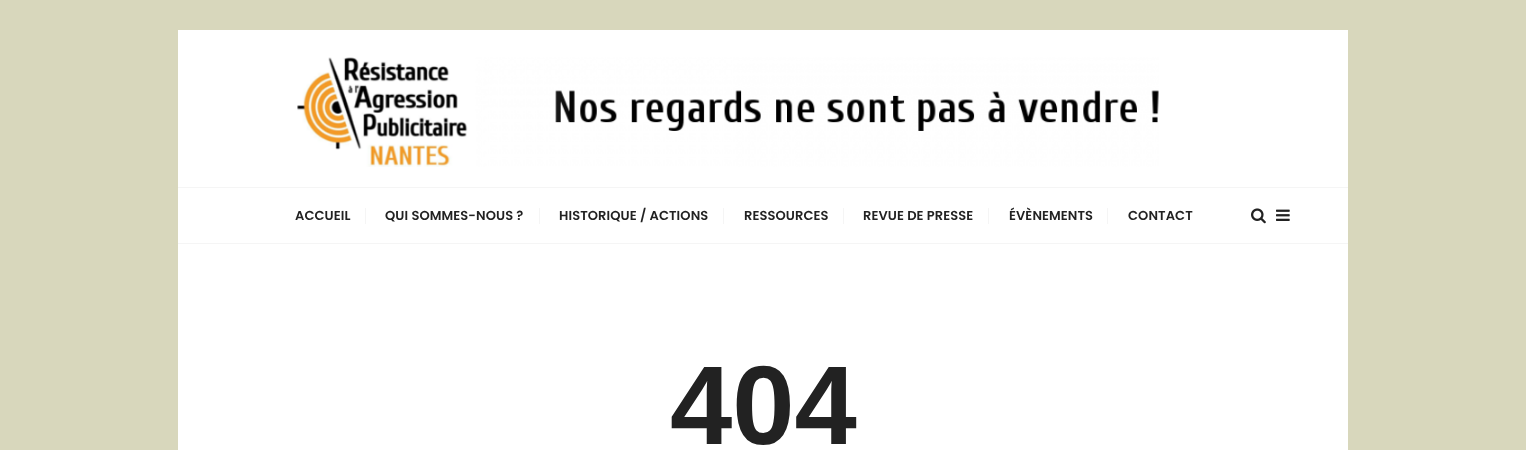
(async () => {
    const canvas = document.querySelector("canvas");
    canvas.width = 1526;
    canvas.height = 450;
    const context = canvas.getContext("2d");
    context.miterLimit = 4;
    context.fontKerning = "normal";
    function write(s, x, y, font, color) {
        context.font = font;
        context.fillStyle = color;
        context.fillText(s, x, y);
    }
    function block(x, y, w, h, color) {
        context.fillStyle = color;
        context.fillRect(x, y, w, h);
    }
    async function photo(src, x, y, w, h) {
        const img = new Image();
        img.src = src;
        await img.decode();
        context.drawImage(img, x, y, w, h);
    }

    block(0, 0, 1526, 450, "rgb(216, 215, 188)");
    block(178, 30, 1170, 420, "rgb(255, 255, 255)");
    await photo("media/1.png", 297, 57, 862, 110);
    block(178, 187, 1170, 1, "rgb(245, 245, 245)");
    block(178, 243, 1170, 1, "rgb(245, 245, 245)");
    context.letterSpacing = "0.1px";
    write("ACCUEIL", 295, 220, "600 13px Poppins", "rgb(34, 34, 34)");
    block(365, 208, 1, 16, "rgb(245, 245, 245)");
    write("QUI SOMMES-NOUS ?", 385, 220, "600 13px Poppins", "rgb(34, 34, 34)");
    block(539, 208, 1, 16, "rgb(245, 245, 245)");
    write("HISTORIQUE / ACTIONS", 559, 220, "600 13px Poppins", "rgb(34, 34, 34)");
    block(723, 208, 1, 16, "rgb(245, 245, 245)");
    write("RESSOURCES", 744, 220, "600 13px Poppins", "rgb(34, 34, 34)");
    block(843, 208, 1, 16, "rgb(245, 245, 245)");
    write("REVUE DE PRESSE", 863, 220, "600 13px Poppins", "rgb(34, 34, 34)");
    block(988, 208, 1, 16, "rgb(245, 245, 245)");
    write("ÉVÈNEMENTS", 1009, 220, "600 13px Poppins", "rgb(34, 34, 34)");
    block(1107, 208, 1, 16, "rgb(245, 245, 245)");
    write("CONTACT", 1128, 220, "600 13px Poppins", "rgb(34, 34, 34)");
    await photo("media/2.png", 1251, 208, 15, 16);
    await photo("media/3.png", 1276, 209, 14, 12);
    context.letterSpacing = "0px";
    write("404", 670, 444, "bold 112px Liberation Sans", "rgb(34, 34, 34)");
})();
